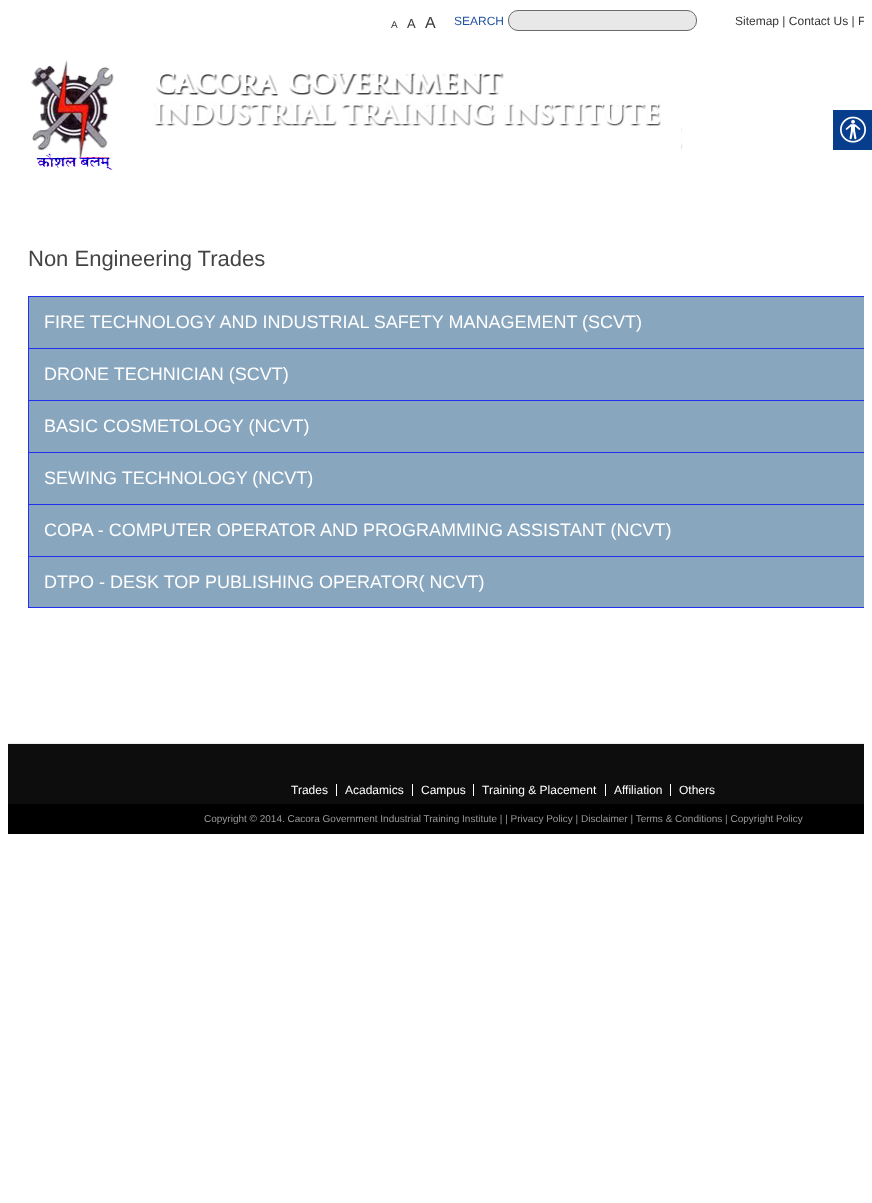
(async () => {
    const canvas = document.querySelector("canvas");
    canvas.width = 872;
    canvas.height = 1203;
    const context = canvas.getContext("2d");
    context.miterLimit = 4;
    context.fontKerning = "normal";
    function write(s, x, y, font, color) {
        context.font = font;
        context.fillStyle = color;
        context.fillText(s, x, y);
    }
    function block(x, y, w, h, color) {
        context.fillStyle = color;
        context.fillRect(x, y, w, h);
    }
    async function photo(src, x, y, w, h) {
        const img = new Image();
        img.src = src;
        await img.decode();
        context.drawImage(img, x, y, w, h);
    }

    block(0, 0, 872, 1203, "rgb(255, 255, 255)");
    write("A", 391, 28, "10px Liberation Sans", "rgb(55, 55, 55)");
    write("A", 407, 28, "13px Liberation Sans", "rgb(55, 55, 55)");
    write("A", 425, 28, "16px Liberation Sans", "rgb(55, 55, 55)");
    write("SEARCH", 454, 25, "12px Liberation Sans", "rgb(34, 82, 161)");
    context.fillStyle = "rgb(232, 232, 232)";
    context.beginPath();
    context.roundRect(508.5, 10.5, 188, 20, 9.5);
    context.fill();
    context.strokeStyle = "rgb(107, 107, 107)";
    context.stroke();
    write("Sitemap | Contact Us |", 735, 25, "12px Liberation Sans", "rgb(55, 55, 55)");
    context.save();
    context.beginPath();
    context.rect(8, 8, 856, 735);
    context.clip();
    write("F", 858, 25, "12px Liberation Sans", "rgb(55, 55, 55)");
    context.restore();
    await photo("media/1.png", 30, 60, 653, 110);
    write("Non Engineering Trades", 28, 266, "22px Liberation Sans", "rgb(68, 68, 68)");
    block(29, 297, 835, 51, "rgb(137, 166, 191)");
    context.save();
    context.beginPath();
    context.rect(8, 8, 856, 735);
    context.clip();
    context.strokeStyle = "rgb(32, 49, 234)";
    context.strokeRect(28.5, 296.5, 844, 52);
    context.restore();
    write("FIRE TECHNOLOGY AND INDUSTRIAL SAFETY MANAGEMENT (SCVT)", 44, 328, "18px Liberation Sans", "rgb(255, 255, 255)");
    block(29, 349, 835, 51, "rgb(137, 166, 191)");
    block(28, 400, 836, 1, "rgb(32, 49, 234)");
    block(28, 349, 1, 52, "rgb(32, 49, 234)");
    write("DRONE TECHNICIAN (SCVT)", 44, 380, "18px Liberation Sans", "rgb(255, 255, 255)");
    block(29, 401, 835, 51, "rgb(137, 166, 191)");
    block(28, 452, 836, 1, "rgb(32, 49, 234)");
    block(28, 401, 1, 52, "rgb(32, 49, 234)");
    write("BASIC COSMETOLOGY (NCVT)", 44, 432, "18px Liberation Sans", "rgb(255, 255, 255)");
    block(29, 453, 835, 51, "rgb(137, 166, 191)");
    block(28, 504, 836, 1, "rgb(32, 49, 234)");
    block(28, 453, 1, 52, "rgb(32, 49, 234)");
    write("SEWING TECHNOLOGY (NCVT)", 44, 484, "18px Liberation Sans", "rgb(255, 255, 255)");
    block(29, 505, 835, 51, "rgb(137, 166, 191)");
    block(28, 556, 836, 1, "rgb(32, 49, 234)");
    block(28, 505, 1, 52, "rgb(32, 49, 234)");
    write("COPA - COMPUTER OPERATOR AND PROGRAMMING ASSISTANT (NCVT)", 44, 536, "18px Liberation Sans", "rgb(255, 255, 255)");
    block(29, 557, 835, 50, "rgb(137, 166, 191)");
    block(28, 607, 836, 1, "rgb(32, 49, 234)");
    block(28, 557, 1, 51, "rgb(32, 49, 234)");
    write("DTPO - DESK TOP PUBLISHING OPERATOR( NCVT)", 44, 588, "18px Liberation Sans", "rgb(255, 255, 255)");
    block(833, 110, 39, 40, "rgb(6, 61, 141)");
    await photo("media/2.png", 840, 116, 26, 27);
    block(8, 743, 856, 1, "rgb(237, 237, 237)");
    block(8, 744, 856, 60, "rgb(13, 13, 13)");
    write("Trades", 291, 794, "12px Liberation Sans", "rgb(255, 255, 255)");
    block(336, 784, 1, 12, "rgb(255, 255, 255)");
    write("Acadamics", 345, 794, "12px Liberation Sans", "rgb(255, 255, 255)");
    block(412, 784, 1, 12, "rgb(255, 255, 255)");
    write("Campus", 421, 794, "12px Liberation Sans", "rgb(255, 255, 255)");
    block(473, 784, 1, 12, "rgb(255, 255, 255)");
    write("Training & Placement", 482, 794, "12px Liberation Sans", "rgb(255, 255, 255)");
    block(605, 784, 1, 12, "rgb(255, 255, 255)");
    write("Affiliation", 614, 794, "12px Liberation Sans", "rgb(255, 255, 255)");
    block(670, 784, 1, 12, "rgb(255, 255, 255)");
    write("Others", 679, 794, "12px Liberation Sans", "rgb(255, 255, 255)");
    block(8, 804, 856, 30, "rgb(0, 0, 0)");
    write("Copyright © 2014. Cacora Government Industrial Training Institute | | Privacy Policy | Disclaimer | Terms & Conditions | Copyright Policy", 204, 822, "10px Liberation Sans", "rgb(153, 153, 153)");
})();
